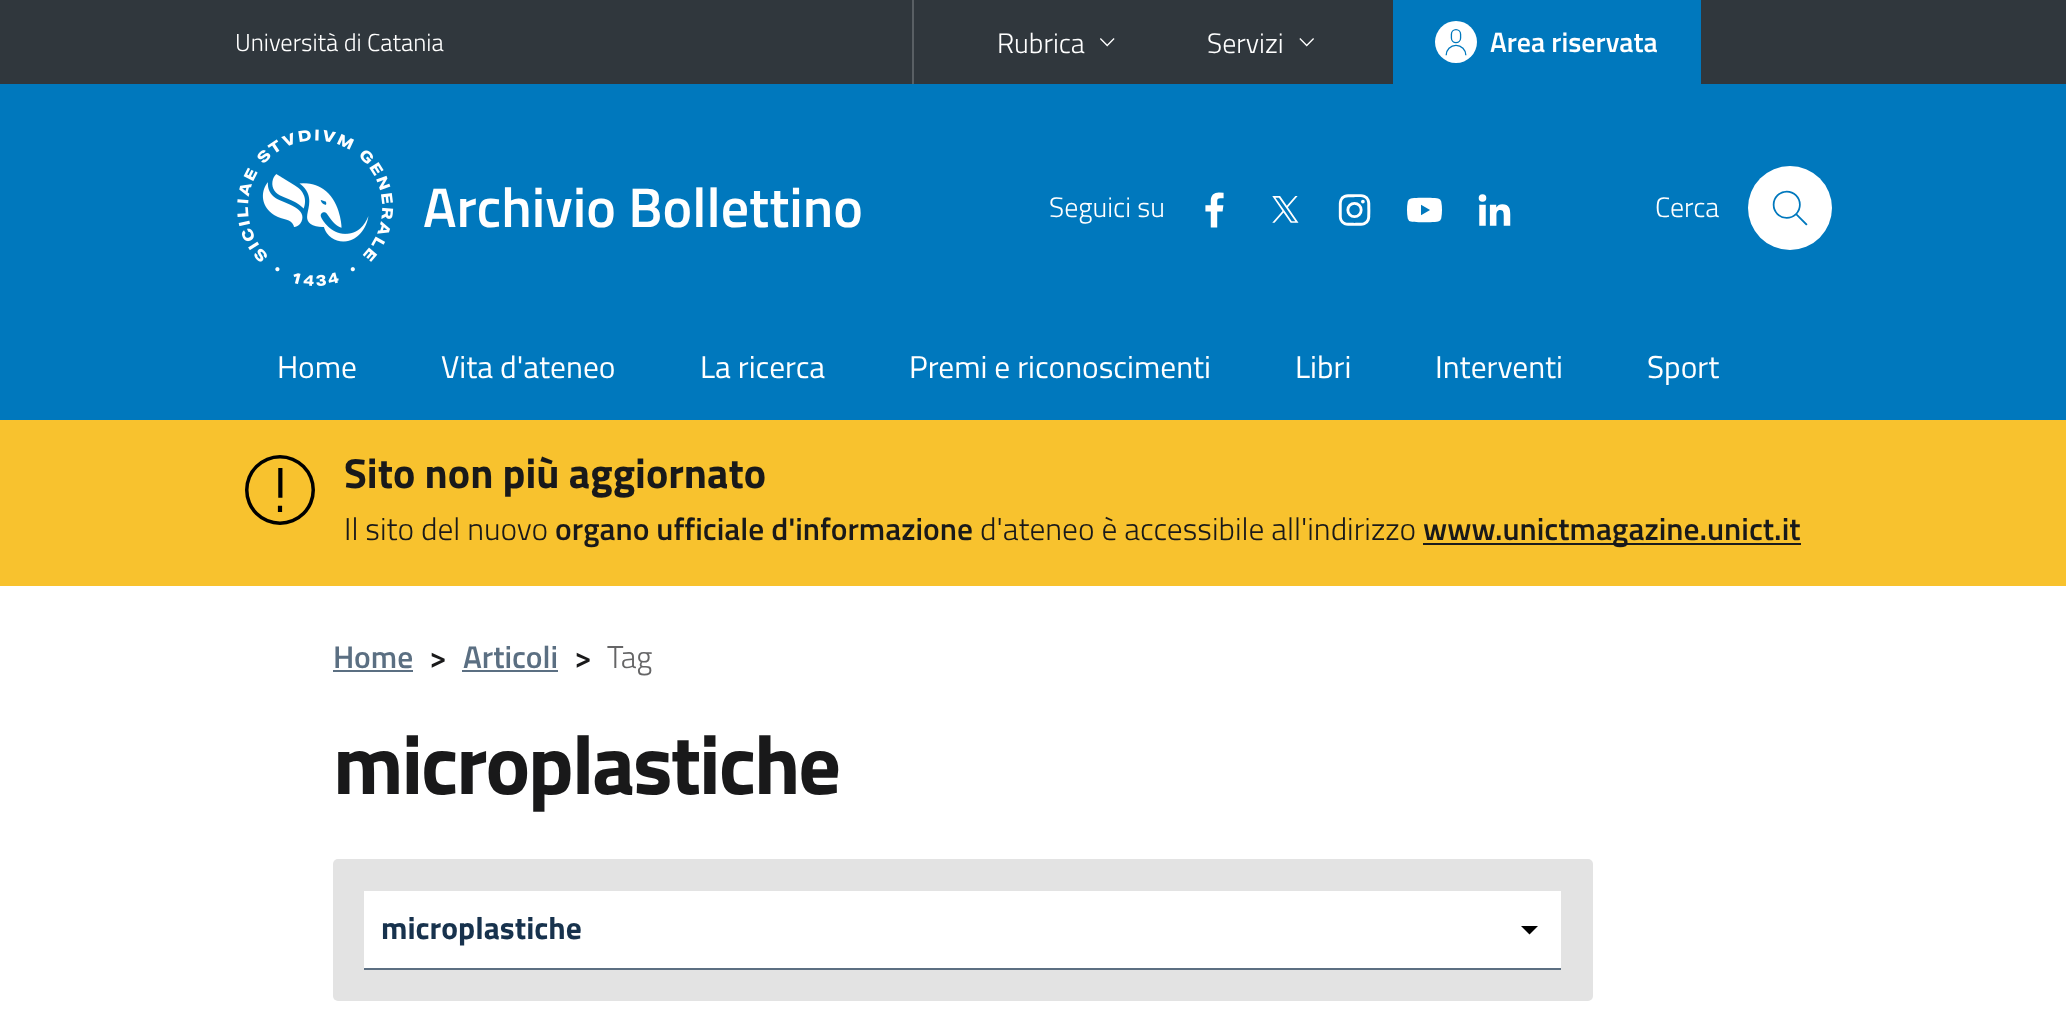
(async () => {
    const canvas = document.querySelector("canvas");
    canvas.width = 2066;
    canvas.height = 1022;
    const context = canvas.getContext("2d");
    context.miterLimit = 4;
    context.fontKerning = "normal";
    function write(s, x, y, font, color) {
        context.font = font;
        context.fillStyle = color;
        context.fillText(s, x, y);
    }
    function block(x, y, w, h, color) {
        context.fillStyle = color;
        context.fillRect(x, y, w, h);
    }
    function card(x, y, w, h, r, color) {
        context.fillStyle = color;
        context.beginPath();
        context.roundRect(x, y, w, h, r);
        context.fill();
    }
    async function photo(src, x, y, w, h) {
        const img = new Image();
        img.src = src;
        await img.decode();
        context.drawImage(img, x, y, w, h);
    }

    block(0, 0, 2066, 1022, "rgb(255, 255, 255)");
    block(0, 0, 2066, 84, "rgb(48, 55, 61)");
    write("Università di Catania", 235, 51, "300 24.5px Titillium Web", "rgb(255, 255, 255)");
    block(912, 0, 2, 84, "rgb(89, 95, 100)");
    write("Rubrica", 997, 53, "300 28px Titillium Web", "rgb(255, 255, 255)");
    await photo("media/1.png", 1100, 38, 15, 9);
    write("Servizi", 1207, 53, "300 28px Titillium Web", "rgb(255, 255, 255)");
    await photo("media/2.png", 1299, 38, 15, 9);
    block(1393, 0, 308, 84, "rgb(0, 120, 189)");
    context.fillStyle = "rgb(255, 255, 255)";
    context.beginPath();
    context.arc(1456, 42, 21, 0, Math.PI * 2);
    context.fill();
    await photo("media/3.png", 1445, 29, 22, 27);
    write("Area riservata", 1490, 52, "600 28px Titillium Web", "rgb(255, 255, 255)");
    block(0, 84, 2066, 336, "rgb(0, 120, 189)");
    await photo("media/4.png", 237, 129, 157, 157);
    write("Archivio Bollettino", 423, 227, "600 56px Titillium Web", "rgb(255, 255, 255)");
    write("Seguici su", 1049, 217, "300 28px Titillium Web", "rgb(255, 255, 255)");
    await photo("media/5.png", 1205, 192, 19, 36);
    await photo("media/6.png", 1272, 196, 27, 27);
    await photo("media/7.png", 1338, 194, 33, 32);
    await photo("media/8.png", 1407, 197, 35, 26);
    await photo("media/9.png", 1478, 194, 33, 32);
    write("Cerca", 1655, 217, "300 28px Titillium Web", "rgb(255, 255, 255)");
    context.beginPath();
    context.arc(1790, 208, 42, 0, Math.PI * 2);
    context.fill();
    await photo("media/10.png", 1772, 190, 36, 36);
    write("Home", 277, 378, "31.5px Titillium Web", "rgb(255, 255, 255)");
    write("Vita d'ateneo", 441, 378, "31.5px Titillium Web", "rgb(255, 255, 255)");
    write("La ricerca", 700, 378, "31.5px Titillium Web", "rgb(255, 255, 255)");
    write("Premi e riconoscimenti", 909, 378, "31.5px Titillium Web", "rgb(255, 255, 255)");
    write("Libri", 1295, 378, "31.5px Titillium Web", "rgb(255, 255, 255)");
    write("Interventi", 1435, 378, "31.5px Titillium Web", "rgb(255, 255, 255)");
    write("Sport", 1647, 378, "31.5px Titillium Web", "rgb(255, 255, 255)");
    block(0, 420, 2066, 166, "rgb(248, 194, 46)");
    await photo("media/11.png", 245, 455, 70, 70);
    write("Sito non più aggiornato", 344, 488, "bold 42px Titillium Web", "rgb(25, 25, 26)");
    write("Il sito del nuovo", 344, 540, "300 31.5px Titillium Web", "rgb(25, 25, 26)");
    write("organo ufficiale d'informazione", 555, 540, "600 31.5px Titillium Web", "rgb(25, 25, 26)");
    write("d'ateneo è accessibile all'indirizzo", 980, 540, "300 31.5px Titillium Web", "rgb(25, 25, 26)");
    block(1423, 543, 378, 2, "rgb(28, 28, 28)");
    write("www.unictmagazine.unict.it", 1423, 540, "600 31.5px Titillium Web", "rgb(25, 25, 26)");
    write("Home", 333, 668, "600 31.5px Titillium Web", "rgb(91, 111, 130)");
    block(333, 670, 80, 2, "rgb(91, 111, 130)");
    write(">", 429, 668, "600 31.5px Titillium Web", "rgb(25, 25, 26)");
    write("Articoli", 463, 668, "600 31.5px Titillium Web", "rgb(91, 111, 130)");
    block(462, 670, 96, 2, "rgb(91, 111, 130)");
    write(">", 574, 668, "600 31.5px Titillium Web", "rgb(25, 25, 26)");
    write("Tag", 607, 668, "300 31.5px Titillium Web", "rgb(101, 101, 102)");
    context.letterSpacing = "-2.1px";
    write("microplastiche", 333, 794, "bold 84px Titillium Web", "rgb(25, 25, 26)");
    card(333, 859, 1260, 142, 5, "rgb(227, 227, 227)");
    block(364, 891, 1197, 77, "rgb(255, 255, 255)");
    context.fillStyle = "rgb(0, 0, 0)";
    context.beginPath();
    context.moveTo(1521, 926);
    context.lineTo(1529.5, 934.5);
    context.lineTo(1538, 926);
    context.closePath();
    context.fill();
    block(364, 968, 1197, 2, "rgb(92, 111, 130)");
    context.letterSpacing = "0px";
    write("microplastiche", 381, 939, "bold 31.5px Titillium Web", "rgb(23, 50, 77)");
})();
